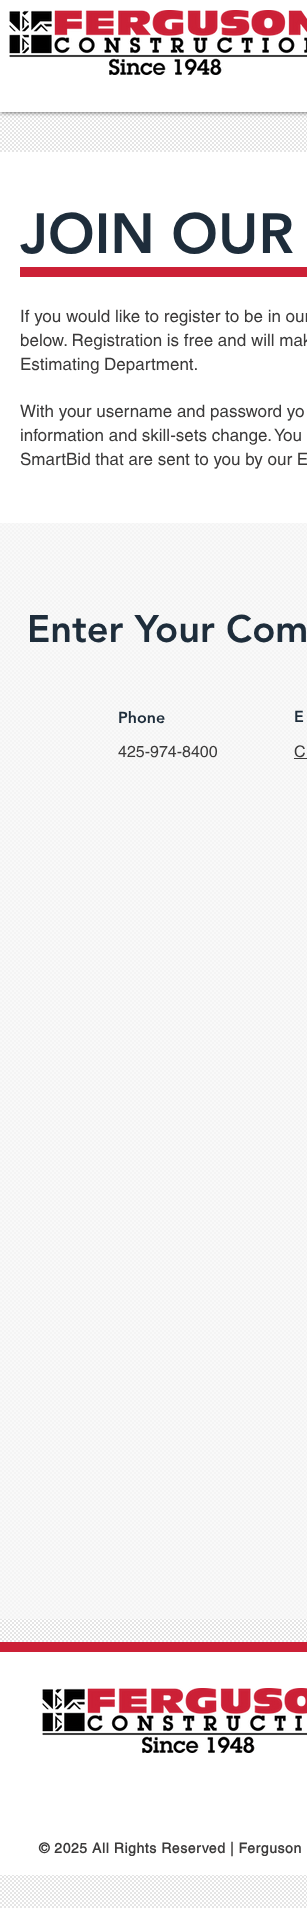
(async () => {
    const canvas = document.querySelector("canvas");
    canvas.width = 307;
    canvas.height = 1908;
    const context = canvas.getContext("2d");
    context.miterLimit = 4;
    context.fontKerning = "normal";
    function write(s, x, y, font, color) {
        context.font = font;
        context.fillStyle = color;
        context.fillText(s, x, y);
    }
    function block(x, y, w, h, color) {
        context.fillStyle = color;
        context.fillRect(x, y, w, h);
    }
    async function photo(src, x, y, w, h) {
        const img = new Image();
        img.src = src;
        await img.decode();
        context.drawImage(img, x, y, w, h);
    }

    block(0, 0, 307, 1908, "rgb(255, 255, 255)");
    await photo("media/1.png", 0, 112, 307, 1796);
    context.fillStyle = "rgba(0, 0, 0, 0.7)";
    context.filter = "blur(2.5px)";
    context.beginPath();
    context.rect(0, 0, 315, 112);
    context.fill();
    context.filter = "none";
    block(0, 0, 307, 112, "rgb(255, 255, 255)");
    await photo("media/2.png", 9, 10, 298, 65);
    block(0, 152, 307, 371, "rgb(255, 255, 255)");
    write("JOIN OUR", 20, 253, "900 56px 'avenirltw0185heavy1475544'", "rgb(30, 45, 59)");
    block(20, 267, 287, 10, "rgb(204, 32, 54)");
    write("If you would like to register to be in our", 20, 322, "17px helvetica", "rgb(59, 58, 58)");
    write("below. Registration is free and will mak", 20, 346, "17px helvetica", "rgb(59, 58, 58)");
    write("Estimating Department.", 20, 370, "17px helvetica", "rgb(59, 58, 58)");
    write("With your username and password yo", 20, 417, "17px helvetica", "rgb(59, 58, 58)");
    write("information and skill-sets change. You", 20, 441, "17px helvetica", "rgb(59, 58, 58)");
    write("SmartBid that are sent to you by our E", 20, 465, "17px helvetica", "rgb(59, 58, 58)");
    block(0, 523, 307, 1096, "rgba(247, 247, 247, 0.8)");
    write("Enter Your Com", 27, 642, "900 38px 'avenirltw0185heavy1475544'", "rgb(30, 45, 59)");
    write("Phone", 118, 723, "900 16px 'avenirltw0185heavy1475544'", "rgb(30, 45, 59)");
    write("425-974-8400", 118, 757, "16px helvetica", "rgb(59, 58, 58)");
    write("E", 294, 722, "900 16px 'avenirltw0185heavy1475544'", "rgb(30, 45, 59)");
    write("C", 294, 757, "16px helvetica", "rgb(59, 58, 58)");
    block(294, 758, 13, 1, "rgb(59, 58, 58)");
    block(0, 1652, 307, 223, "rgb(255, 255, 255)");
    block(0, 1642, 307, 10, "rgb(204, 32, 54)");
    await photo("media/3.png", 42, 1688, 265, 65);
    context.letterSpacing = "0.55px";
    write("© 2025 All Rights Reserved | Ferguson", 39, 1853, "bold 14px helvetica", "rgb(59, 58, 58)");
})();
